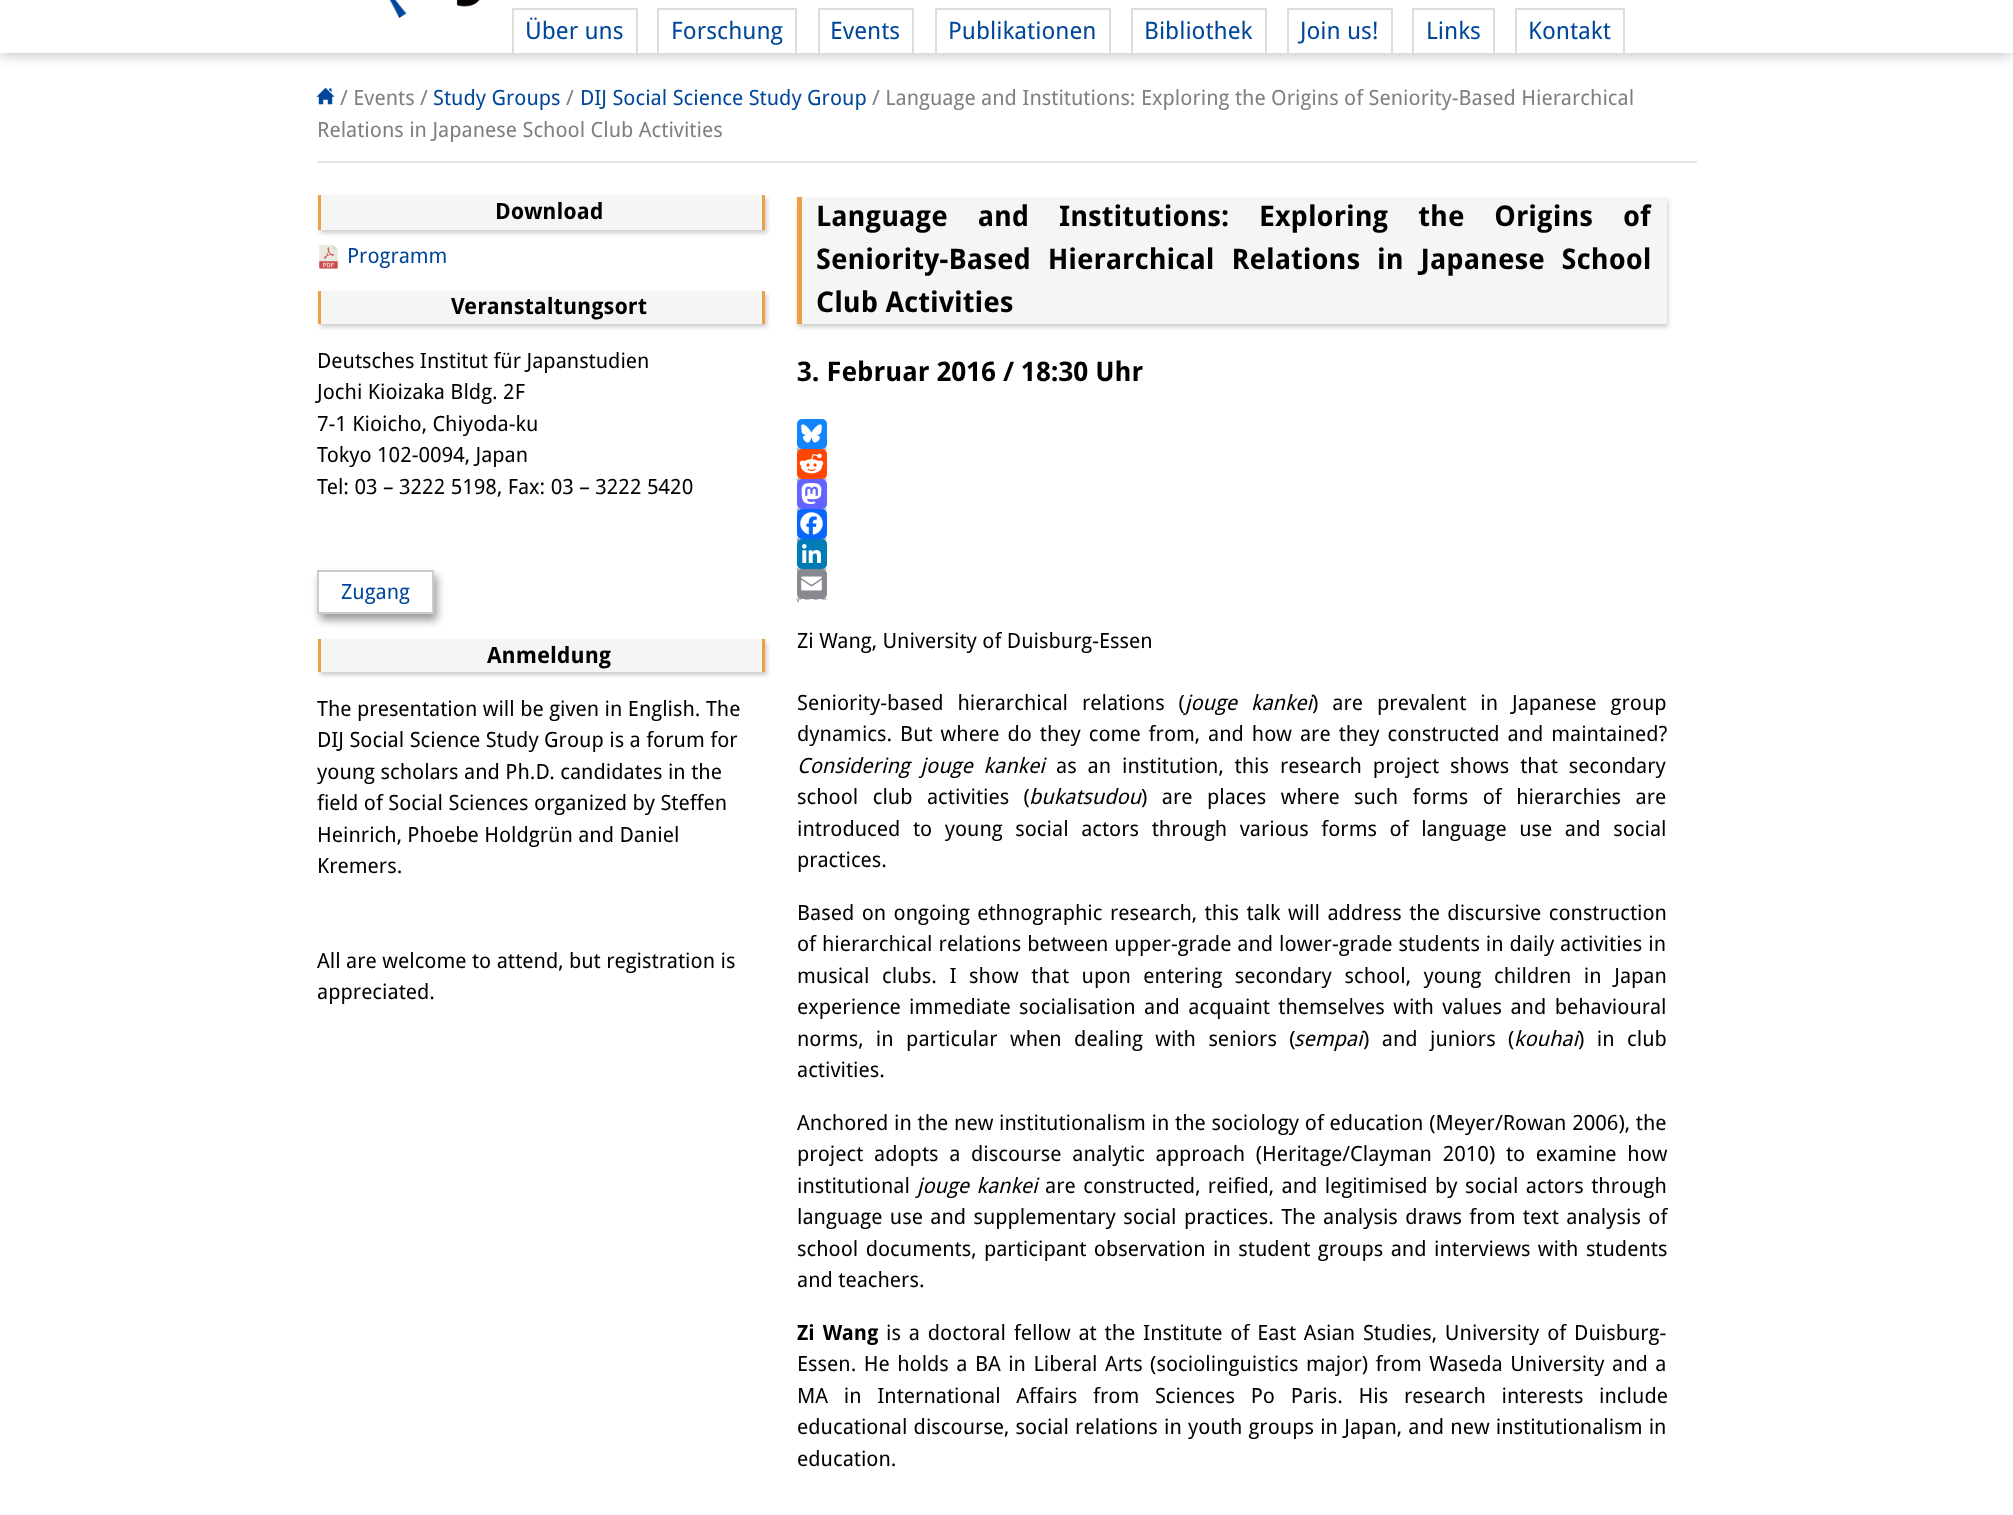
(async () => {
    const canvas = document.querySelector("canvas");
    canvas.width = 2013;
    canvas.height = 1515;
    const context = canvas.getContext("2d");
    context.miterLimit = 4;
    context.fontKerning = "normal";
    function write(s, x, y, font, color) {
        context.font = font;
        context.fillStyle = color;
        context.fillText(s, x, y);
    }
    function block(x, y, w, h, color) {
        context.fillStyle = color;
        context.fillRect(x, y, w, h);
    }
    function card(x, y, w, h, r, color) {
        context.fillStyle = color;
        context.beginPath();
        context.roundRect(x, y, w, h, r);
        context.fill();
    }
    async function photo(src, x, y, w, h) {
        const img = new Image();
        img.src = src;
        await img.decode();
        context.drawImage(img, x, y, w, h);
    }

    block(0, 0, 2013, 1515, "rgb(255, 255, 255)");
    context.fillStyle = "rgba(0, 0, 0, 0.3)";
    context.filter = "blur(7.5px)";
    context.beginPath();
    context.rect(0, -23, 2013, 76);
    context.fill();
    context.filter = "none";
    block(0, 0, 2013, 53, "rgb(255, 255, 255)");
    await photo("media/1.png", 389, 0, 91, 18);
    block(512, 8, 126, 2, "rgb(221, 221, 221)");
    block(636, 8, 2, 45, "rgb(221, 221, 221)");
    block(512, 8, 2, 45, "rgb(221, 221, 221)");
    write("Über uns", 525, 39, "24px Droid Sans", "rgb(0, 70, 155)");
    block(657, 8, 140, 2, "rgb(221, 221, 221)");
    block(795, 8, 2, 45, "rgb(221, 221, 221)");
    block(657, 8, 2, 45, "rgb(221, 221, 221)");
    write("Forschung", 671, 39, "24px Droid Sans", "rgb(0, 70, 155)");
    block(818, 8, 96, 2, "rgb(221, 221, 221)");
    block(912, 8, 2, 45, "rgb(221, 221, 221)");
    block(818, 8, 2, 45, "rgb(221, 221, 221)");
    write("Events", 830, 39, "24px Droid Sans", "rgb(0, 70, 155)");
    block(935, 8, 175, 2, "rgb(221, 221, 221)");
    block(1109, 8, 2, 45, "rgb(221, 221, 221)");
    block(935, 8, 2, 45, "rgb(221, 221, 221)");
    write("Publikationen", 948, 39, "24px Droid Sans", "rgb(0, 70, 155)");
    block(1131, 8, 135, 2, "rgb(221, 221, 221)");
    block(1265, 8, 2, 45, "rgb(221, 221, 221)");
    block(1131, 8, 2, 45, "rgb(221, 221, 221)");
    write("Bibliothek", 1144, 39, "24px Droid Sans", "rgb(0, 70, 155)");
    block(1287, 8, 105, 2, "rgb(221, 221, 221)");
    block(1391, 8, 2, 45, "rgb(221, 221, 221)");
    block(1287, 8, 2, 45, "rgb(221, 221, 221)");
    write("Join us!", 1300, 39, "24px Droid Sans", "rgb(0, 70, 155)");
    block(1412, 8, 82, 2, "rgb(221, 221, 221)");
    block(1493, 8, 2, 45, "rgb(221, 221, 221)");
    block(1412, 8, 2, 45, "rgb(221, 221, 221)");
    write("Links", 1426, 39, "24px Droid Sans", "rgb(0, 70, 155)");
    block(1515, 8, 110, 2, "rgb(221, 221, 221)");
    block(1623, 8, 2, 45, "rgb(221, 221, 221)");
    block(1515, 8, 2, 45, "rgb(221, 221, 221)");
    write("Kontakt", 1528, 39, "24px Droid Sans", "rgb(0, 70, 155)");
    block(317, 161, 1380, 2, "rgb(230, 230, 230)");
    await photo("media/2.png", 316, 87, 19, 18);
    write("/ Events /", 340, 105, "21px Droid Sans", "rgb(128, 128, 128)");
    write("Study Groups", 433, 105, "21px Droid Sans", "rgb(0, 70, 155)");
    write("/", 566, 105, "21px Droid Sans", "rgb(128, 128, 128)");
    write("DIJ Social Science Study Group", 580, 105, "21px Droid Sans", "rgb(0, 70, 155)");
    write("/ Language and Institutions: Exploring the Origins of Seniority-Based Hierarchical", 872, 105, "21px Droid Sans", "rgb(128, 128, 128)");
    write("Relations in Japanese School Club Activities", 317, 137, "21px Droid Sans", "rgb(128, 128, 128)");
    context.save();
    context.beginPath();
    context.moveTo(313, 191);
    context.lineTo(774, 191);
    context.lineTo(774, 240);
    context.lineTo(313, 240);
    context.closePath();
    context.moveTo(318, 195);
    context.lineTo(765, 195);
    context.lineTo(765, 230);
    context.lineTo(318, 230);
    context.closePath();
    context.clip("evenodd");
    context.fillStyle = "rgb(204, 204, 204)";
    context.filter = "blur(2px)";
    context.beginPath();
    context.rect(320, 198, 447, 35);
    context.fill();
    context.filter = "none";
    context.restore();
    block(321, 195, 441, 35, "rgba(119, 119, 119, 0.07)");
    block(762, 195, 3, 35, "rgb(237, 159, 69)");
    block(318, 195, 3, 35, "rgb(237, 159, 69)");
    write("Download", 495, 219, "bold 22.5px Droid Sans", "rgb(0, 0, 0)");
    await photo("media/3.png", 319, 245, 19, 24);
    write("Programm", 347, 263, "21px Droid Sans", "rgb(0, 70, 155)");
    context.fillStyle = "rgb(204, 204, 204)";
    context.filter = "blur(2px)";
    context.beginPath();
    context.rect(320, 294, 447, 33);
    context.fill();
    context.filter = "none";
    block(321, 291, 441, 33, "rgb(245, 245, 245)");
    block(762, 291, 3, 33, "rgb(237, 159, 69)");
    block(318, 291, 3, 33, "rgb(237, 159, 69)");
    write("Veranstaltungsort", 451, 314, "bold 22.5px Droid Sans", "rgb(0, 0, 0)");
    write("Deutsches Institut für Japanstudien", 317, 368, "21px Droid Sans", "rgb(0, 0, 0)");
    write("Jochi Kioizaka Bldg. 2F", 317, 399, "21px Droid Sans", "rgb(0, 0, 0)");
    write("7-1 Kioicho, Chiyoda-ku", 317, 431, "21px Droid Sans", "rgb(0, 0, 0)");
    write("Tokyo 102-0094, Japan", 317, 462, "21px Droid Sans", "rgb(0, 0, 0)");
    write("Tel: 03 – 3222 5198, Fax: 03 – 3222 5420", 317, 494, "21px Droid Sans", "rgb(0, 0, 0)");
    context.save();
    context.beginPath();
    context.moveTo(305, 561);
    context.lineTo(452, 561);
    context.lineTo(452, 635);
    context.lineTo(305, 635);
    context.closePath();
    context.moveTo(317, 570);
    context.lineTo(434, 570);
    context.lineTo(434, 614);
    context.lineTo(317, 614);
    context.closePath();
    context.clip("evenodd");
    context.fillStyle = "rgb(153, 153, 153)";
    context.filter = "blur(4.5px)";
    context.beginPath();
    context.rect(320, 576, 117, 44);
    context.fill();
    context.filter = "none";
    context.restore();
    context.strokeStyle = "rgb(204, 204, 204)";
    context.lineWidth = 2;
    context.strokeRect(318, 571, 115, 42);
    write("Zugang", 341, 599, "21px Droid Sans", "rgb(0, 70, 155)");
    context.fillStyle = "rgb(204, 204, 204)";
    context.filter = "blur(2px)";
    context.beginPath();
    context.rect(320, 642, 447, 33);
    context.fill();
    context.filter = "none";
    block(321, 639, 441, 33, "rgb(245, 245, 245)");
    block(762, 639, 3, 33, "rgb(237, 159, 69)");
    block(318, 639, 3, 33, "rgb(237, 159, 69)");
    write("Anmeldung", 487, 663, "bold 22.5px Droid Sans", "rgb(0, 0, 0)");
    write("The presentation will be given in English. The", 317, 716, "21px Droid Sans", "rgb(0, 0, 0)");
    write("DIJ Social Science Study Group is a forum for", 317, 747, "21px Droid Sans", "rgb(0, 0, 0)");
    write("young scholars and Ph.D. candidates in the", 317, 779, "21px Droid Sans", "rgb(0, 0, 0)");
    write("field of Social Sciences organized by Steffen", 317, 810, "21px Droid Sans", "rgb(0, 0, 0)");
    write("Heinrich, Phoebe Holdgrün and Daniel", 317, 842, "21px Droid Sans", "rgb(0, 0, 0)");
    write("Kremers.", 317, 873, "21px Droid Sans", "rgb(0, 0, 0)");
    write("All are welcome to attend, but registration is", 317, 968, "21px Droid Sans", "rgb(0, 0, 0)");
    write("appreciated.", 317, 999, "21px Droid Sans", "rgb(0, 0, 0)");
    context.save();
    context.beginPath();
    context.moveTo(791, 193);
    context.lineTo(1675, 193);
    context.lineTo(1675, 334);
    context.lineTo(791, 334);
    context.closePath();
    context.moveTo(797, 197);
    context.lineTo(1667, 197);
    context.lineTo(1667, 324);
    context.lineTo(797, 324);
    context.closePath();
    context.clip("evenodd");
    context.fillStyle = "rgb(204, 204, 204)";
    context.filter = "blur(2px)";
    context.beginPath();
    context.rect(798, 200, 870, 127);
    context.fill();
    context.filter = "none";
    context.restore();
    block(802, 197, 865, 127, "rgba(119, 119, 119, 0.07)");
    block(797, 197, 5, 127, "rgb(237, 159, 69)");
    context.wordSpacing = "22.5px";
    write("Language and Institutions:", 816, 226, "bold 28.5px Droid Sans", "rgb(0, 0, 0)");
    write("Exploring the Origins of", 1259, 226, "bold 28.5px Droid Sans", "rgb(0, 0, 0)");
    context.wordSpacing = "9.5px";
    write("Seniority-Based Hierarchical Relations in Japanese School", 816, 269, "bold 28.5px Droid Sans", "rgb(0, 0, 0)");
    context.wordSpacing = "0px";
    write("Club Activities", 816, 312, "bold 28.5px Droid Sans", "rgb(0, 0, 0)");
    write("3. Februar 2016 / 18:30 Uhr", 797, 381, "bold 27px Droid Sans", "rgb(0, 0, 0)");
    context.beginPath();
    context.moveTo(796.5, 449);
    context.lineTo(826.5, 449);
    context.strokeStyle = "rgb(171, 171, 171)";
    context.lineWidth = 1.5;
    context.setLineDash([4.5, 4]);
    context.stroke();
    block(797, 450, 2, 2, "rgb(171, 171, 171)");
    card(797, 419, 30, 30, 5, "rgb(18, 133, 254)");
    await photo("media/4.png", 801, 424, 21, 19);
    context.beginPath();
    context.moveTo(796.5, 479);
    context.lineTo(826.5, 479);
    context.stroke();
    block(797, 480, 2, 2, "rgb(171, 171, 171)");
    card(797, 449, 30, 30, 5, "rgb(255, 69, 0)");
    await photo("media/5.png", 799, 453, 25, 21);
    context.beginPath();
    context.moveTo(796.5, 509);
    context.lineTo(826.5, 509);
    context.stroke();
    block(797, 510, 2, 2, "rgb(171, 171, 171)");
    card(797, 479, 30, 30, 5, "rgb(99, 100, 255)");
    await photo("media/6.png", 801, 482, 21, 22);
    context.beginPath();
    context.moveTo(796.5, 539);
    context.lineTo(826.5, 539);
    context.stroke();
    block(797, 540, 2, 2, "rgb(171, 171, 171)");
    card(797, 509, 30, 30, 5, "rgb(8, 102, 255)");
    await photo("media/7.png", 800, 512, 23, 23);
    context.beginPath();
    context.moveTo(796.5, 569);
    context.lineTo(826.5, 569);
    context.stroke();
    block(797, 570, 2, 2, "rgb(171, 171, 171)");
    card(797, 539, 30, 30, 5, "rgb(0, 123, 181)");
    await photo("media/8.png", 802, 544, 19, 19);
    context.beginPath();
    context.moveTo(796.5, 599);
    context.lineTo(826.5, 599);
    context.stroke();
    block(797, 600, 2, 2, "rgb(171, 171, 171)");
    card(797, 569, 30, 30, 5, "rgb(136, 137, 144)");
    await photo("media/9.png", 801, 576, 21, 15);
    write("Zi Wang, University of Duisburg-Essen", 797, 648, "21px Droid Sans", "rgb(0, 0, 0)");
    context.wordSpacing = "8.5px";
    write("Seniority-based hierarchical relations (", 797, 710, "21px Droid Sans", "rgb(0, 0, 0)");
    write("jouge kankei", 1185, 710, "italic 21px Droid Sans", "rgb(0, 0, 0)");
    write(") are prevalent in Japanese group", 1312, 710, "21px Droid Sans", "rgb(0, 0, 0)");
    context.wordSpacing = "2.5px";
    write("dynamics. But where do they come from, and how are they constructed and maintained?", 797, 741, "21px Droid Sans", "rgb(0, 0, 0)");
    context.wordSpacing = "5.5px";
    write("Considering jouge kankei", 797, 773, "italic 21px Droid Sans", "rgb(0, 0, 0)");
    write("as an institution, this research project shows that secondary", 1056, 773, "21px Droid Sans", "rgb(0, 0, 0)");
    context.wordSpacing = "9px";
    write("school club activities (", 797, 804, "21px Droid Sans", "rgb(0, 0, 0)");
    context.wordSpacing = "0px";
    write("bukatsudou", 1029, 804, "italic 21px Droid Sans", "rgb(0, 0, 0)");
    context.wordSpacing = "9px";
    write(") are places where such forms of hierarchies are", 1141, 804, "21px Droid Sans", "rgb(0, 0, 0)");
    context.wordSpacing = "7.1px";
    write("introduced to young social actors through various forms of language use and social", 797, 836, "21px Droid Sans", "rgb(0, 0, 0)");
    context.wordSpacing = "0px";
    write("practices.", 797, 867, "21px Droid Sans", "rgb(0, 0, 0)");
    context.wordSpacing = "2px";
    write("Based on ongoing ethnographic research, this talk will address the discursive construction", 797, 920, "21px Droid Sans", "rgb(0, 0, 0)");
    context.wordSpacing = "0.5px";
    write("of hierarchical relations between upper-grade and lower-grade students in daily activities in", 797, 951, "21px Droid Sans", "rgb(0, 0, 0)");
    context.wordSpacing = "7.1px";
    write("musical clubs. I show that upon entering secondary school, young children in Japan", 797, 983, "21px Droid Sans", "rgb(0, 0, 0)");
    context.wordSpacing = "3px";
    write("experience immediate socialisation and acquaint themselves with values and behavioural", 797, 1014, "21px Droid Sans", "rgb(0, 0, 0)");
    context.wordSpacing = "7px";
    write("norms, in particular when dealing with seniors (", 797, 1046, "21px Droid Sans", "rgb(0, 0, 0)");
    context.wordSpacing = "0px";
    write("sempai", 1294, 1046, "italic 21px Droid Sans", "rgb(0, 0, 0)");
    context.wordSpacing = "7px";
    write(") and juniors (", 1363, 1046, "21px Droid Sans", "rgb(0, 0, 0)");
    context.wordSpacing = "0px";
    write("kouhai", 1514, 1046, "italic 21px Droid Sans", "rgb(0, 0, 0)");
    context.wordSpacing = "7px";
    write(") in club", 1578, 1046, "21px Droid Sans", "rgb(0, 0, 0)");
    context.wordSpacing = "0px";
    write("activities.", 797, 1077, "21px Droid Sans", "rgb(0, 0, 0)");
    context.wordSpacing = "0.3px";
    write("Anchored in the new institutionalism in the sociology of education (Meyer/Rowan 2006), the", 797, 1130, "21px Droid Sans", "rgb(0, 0, 0)");
    context.wordSpacing = "5.25px";
    write("project adopts a discourse analytic approach (Heritage/Clayman 2010) to examine how", 797, 1161, "21px Droid Sans", "rgb(0, 0, 0)");
    context.wordSpacing = "0px";
    write("institutional", 797, 1193, "21px Droid Sans", "rgb(0, 0, 0)");
    context.wordSpacing = "2px";
    write("jouge kankei", 917, 1193, "italic 21px Droid Sans", "rgb(0, 0, 0)");
    write("are constructed, reified, and legitimised by social actors through", 1045, 1193, "21px Droid Sans", "rgb(0, 0, 0)");
    context.wordSpacing = "1.9px";
    write("language use and supplementary social practices. The analysis draws from text analysis of", 797, 1224, "21px Droid Sans", "rgb(0, 0, 0)");
    context.wordSpacing = "2px";
    write("school documents, participant observation in student groups and interviews with students", 797, 1256, "21px Droid Sans", "rgb(0, 0, 0)");
    context.wordSpacing = "0px";
    write("and teachers.", 797, 1287, "21px Droid Sans", "rgb(0, 0, 0)");
    context.wordSpacing = "2.5px";
    write("Zi Wang", 797, 1340, "bold 21px Droid Sans", "rgb(0, 0, 0)");
    context.wordSpacing = "2.4px";
    write("is a doctoral fellow at the Institute of East Asian Studies, University of Duisburg-", 886, 1340, "21px Droid Sans", "rgb(0, 0, 0)");
    context.wordSpacing = "2px";
    write("Essen. He holds a BA in Liberal Arts (sociolinguistics major) from Waseda University and a", 797, 1371, "21px Droid Sans", "rgb(0, 0, 0)");
    context.wordSpacing = "10.25px";
    write("MA in International Affairs from Sciences Po Paris. His research interests include", 797, 1403, "21px Droid Sans", "rgb(0, 0, 0)");
    context.wordSpacing = "0.75px";
    write("educational discourse, social relations in youth groups in Japan, and new institutionalism in", 797, 1434, "21px Droid Sans", "rgb(0, 0, 0)");
    context.wordSpacing = "0px";
    write("education.", 797, 1466, "21px Droid Sans", "rgb(0, 0, 0)");
})();
